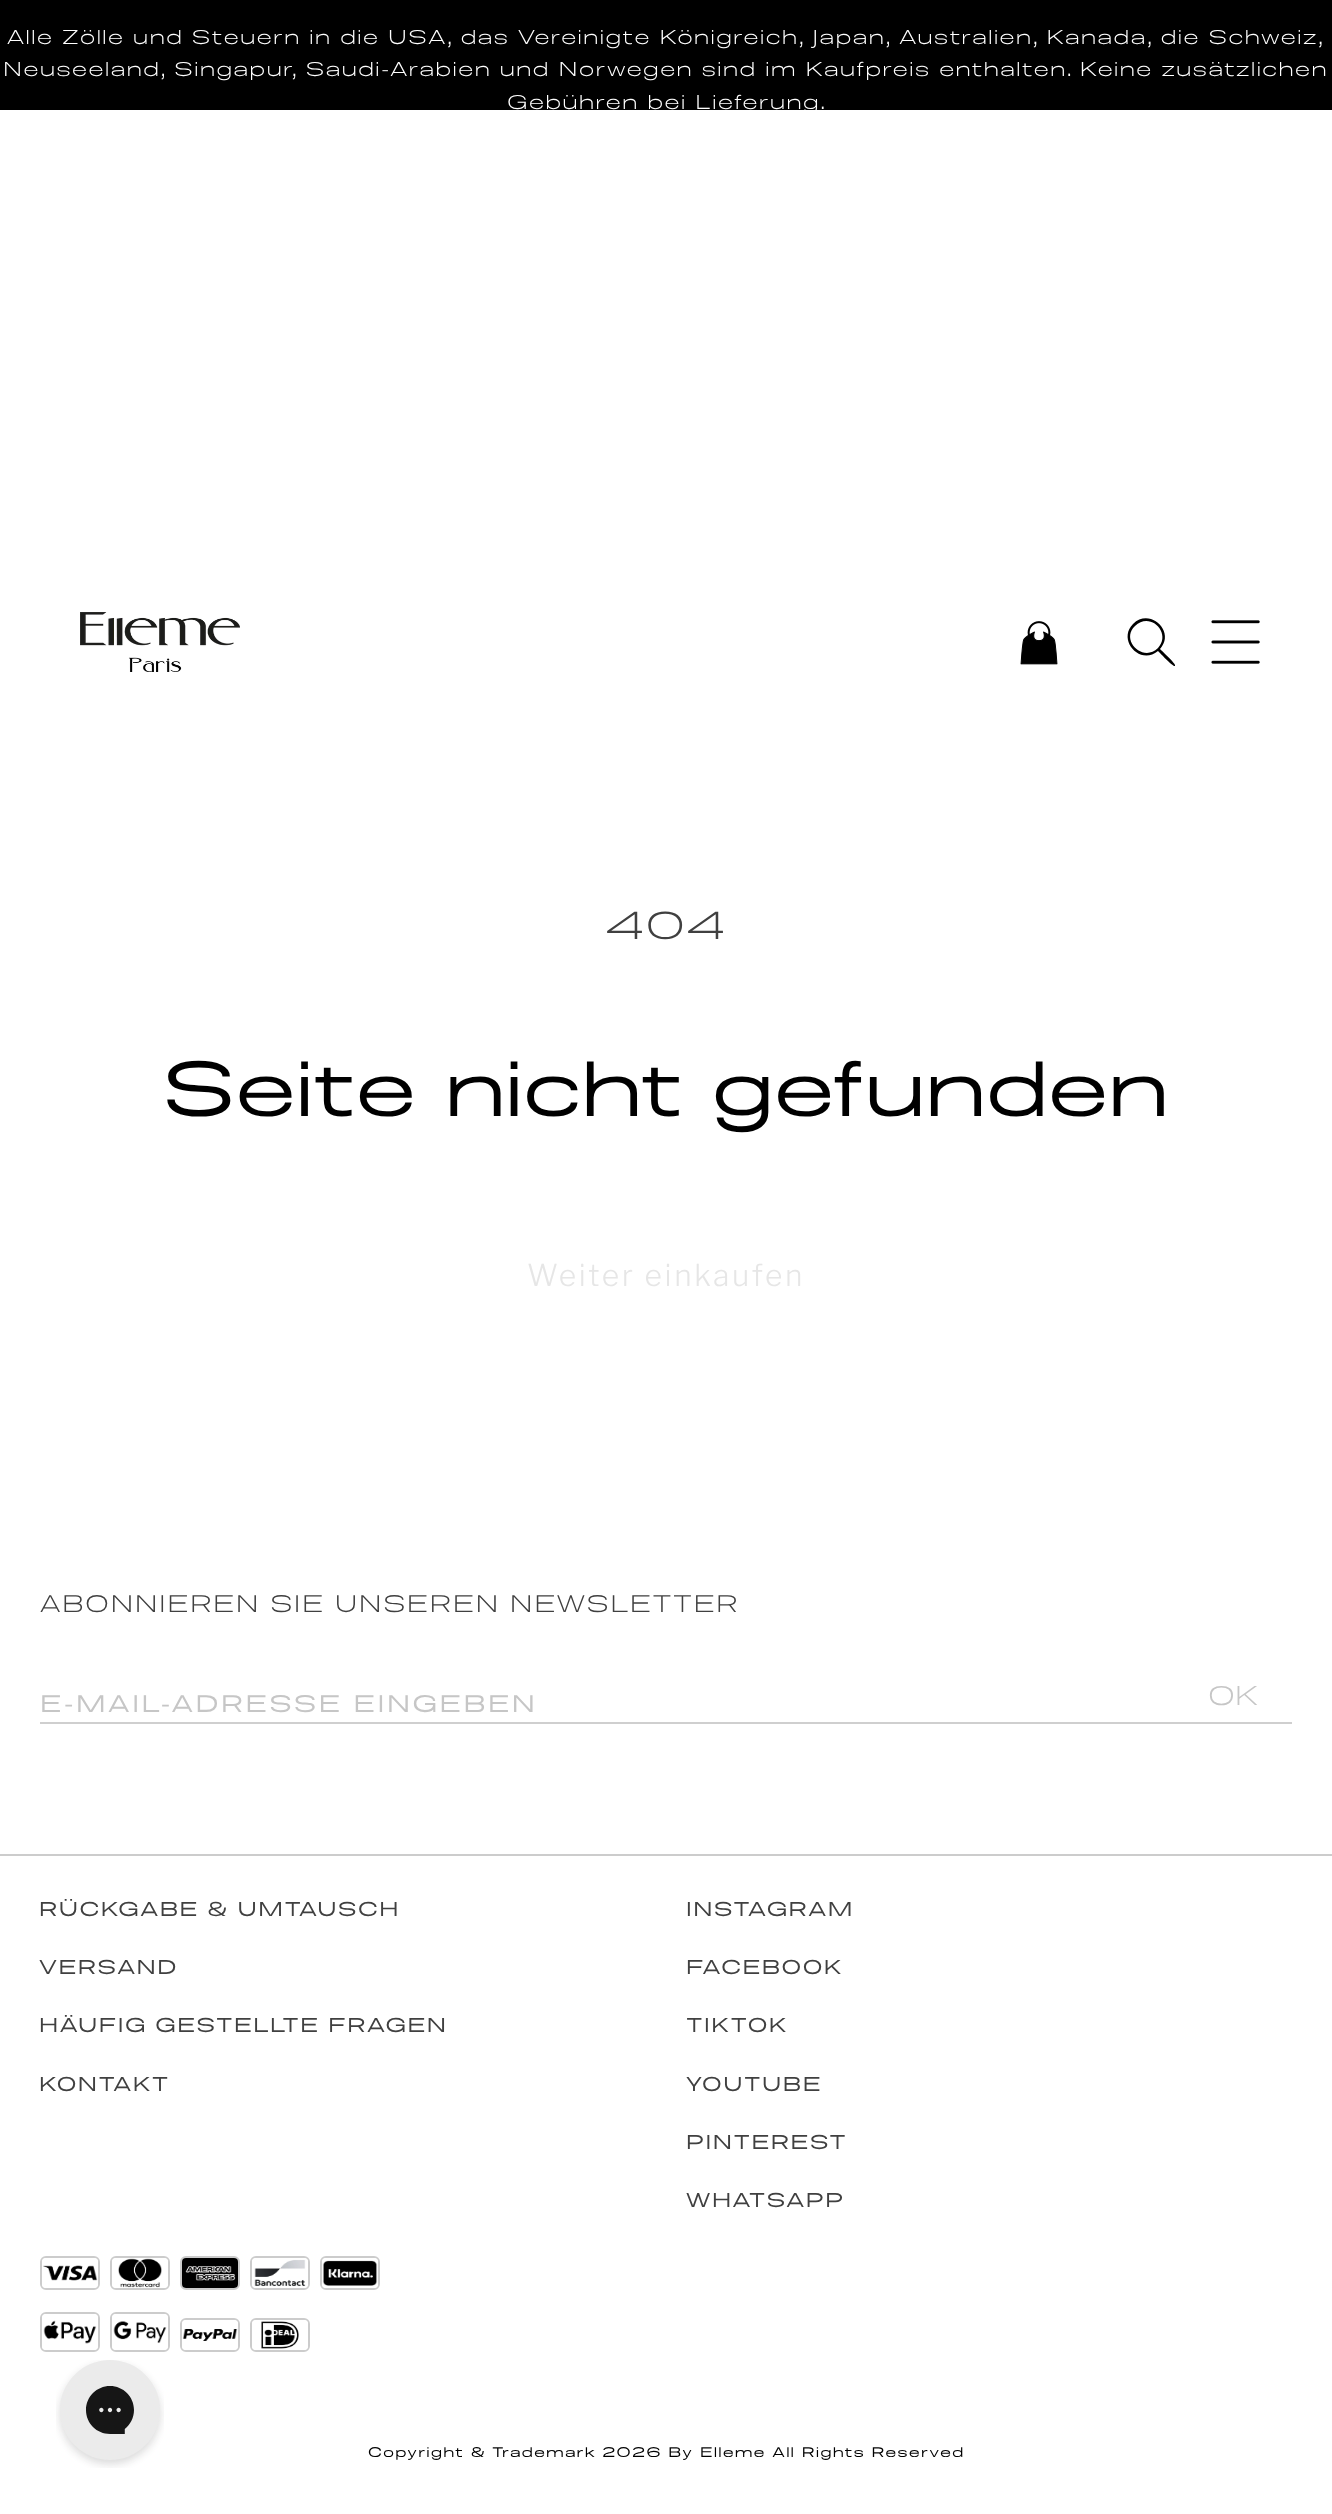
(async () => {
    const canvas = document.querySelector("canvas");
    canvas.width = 1332;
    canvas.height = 2514;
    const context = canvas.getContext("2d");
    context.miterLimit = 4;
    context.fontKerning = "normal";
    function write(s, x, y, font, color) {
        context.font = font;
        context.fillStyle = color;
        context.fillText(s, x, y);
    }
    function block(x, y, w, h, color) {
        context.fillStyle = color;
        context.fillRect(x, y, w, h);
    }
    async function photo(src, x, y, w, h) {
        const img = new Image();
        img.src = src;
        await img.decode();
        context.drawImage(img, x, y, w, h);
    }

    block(0, 0, 1332, 2514, "rgb(255, 255, 255)");
    block(0, 0, 1332, 110, "rgb(0, 0, 0)");
    context.letterSpacing = "1.56px";
    write("Alle Zölle und Steuern in die USA, das Vereinigte Königreich, Japan, Australien, Kanada, die Schweiz,", 7, 44, "800 20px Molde", "rgb(255, 255, 255)");
    write("Neuseeland, Singapur, Saudi-Arabien und Norwegen sind im Kaufpreis enthalten. Keine zusätzlichen", 3, 76, "800 20px Molde", "rgb(255, 255, 255)");
    context.save();
    context.beginPath();
    context.rect(0, 0, 1332, 110);
    context.clip();
    write("Gebühren bei Lieferung.", 507, 109, "800 20px Molde", "rgb(255, 255, 255)");
    context.restore();
    await photo("media/1.png", 80, 612, 160, 60);
    await photo("media/2.png", 1020, 621, 38, 44);
    context.fillStyle = "rgb(0, 0, 0)";
    context.beginPath();
    context.moveTo(1158, 648);
    context.bezierCurveTo(1143, 663, 1120, 640, 1135, 626);
    context.bezierCurveTo(1150, 611, 1172, 633, 1158, 648);
    context.closePath();
    context.moveTo(1158, 651);
    context.bezierCurveTo(1140, 666, 1117, 640, 1133, 624);
    context.bezierCurveTo(1150, 607, 1176, 632, 1160, 649);
    context.bezierCurveTo(1162, 651, 1175, 663, 1175, 665);
    context.lineTo(1175, 666);
    context.bezierCurveTo(1173, 667, 1160, 653, 1158, 651);
    context.closePath();
    context.fill("evenodd");
    await photo("media/3.png", 1211, 620, 49, 44);
    write("404", 605, 939, "800 39px Molde", "rgb(64, 64, 64)");
    write("Seite nicht gefunden", 163, 1116, "800 78px 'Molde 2'", "rgb(0, 0, 0)");
    context.letterSpacing = "2.6px";
    write("Weiter einkaufen", 527, 1286, "300 30px Libre Franklin", "rgb(230, 230, 230)");
    context.letterSpacing = "1.56px";
    write("ABONNIEREN SIE UNSEREN NEWSLETTER", 40, 1612, "800 24px Molde", "rgb(64, 64, 64)");
    block(40, 1722, 1252, 2, "rgb(207, 207, 207)");
    context.letterSpacing = "2.6px";
    write("E-MAIL-ADRESSE EINGEBEN", 40, 1712, "800 24px 'Molde 2'", "rgb(198, 198, 198)");
    context.letterSpacing = "0px";
    write("OK", 1208, 1705, "800 27px Molde", "rgb(198, 198, 198)");
    block(0, 1854, 1332, 2, "rgb(204, 204, 204)");
    context.letterSpacing = "1.56px";
    write("RÜCKGABE & UMTAUSCH", 39, 1916, "800 20px 'Molde 2'", "rgb(64, 64, 64)");
    write("VERSAND", 39, 1974, "800 20px 'Molde 2'", "rgb(64, 64, 64)");
    write("HÄUFIG GESTELLTE FRAGEN", 39, 2032, "800 20px 'Molde 2'", "rgb(64, 64, 64)");
    write("KONTAKT", 39, 2091, "800 20px 'Molde 2'", "rgb(64, 64, 64)");
    write("INSTAGRAM", 686, 1916, "800 20px 'Molde 2'", "rgb(64, 64, 64)");
    write("FACEBOOK", 686, 1974, "800 20px 'Molde 2'", "rgb(64, 64, 64)");
    write("TIKTOK", 686, 2032, "800 20px 'Molde 2'", "rgb(64, 64, 64)");
    write("YOUTUBE", 686, 2091, "800 20px 'Molde 2'", "rgb(64, 64, 64)");
    write("PINTEREST", 686, 2149, "800 20px 'Molde 2'", "rgb(64, 64, 64)");
    write("WHATSAPP", 686, 2207, "800 20px 'Molde 2'", "rgb(64, 64, 64)");
    context.beginPath();
    context.roundRect(41, 2257, 58, 32, 5);
    context.strokeStyle = "rgb(204, 204, 204)";
    context.lineWidth = 2;
    context.stroke();
    context.beginPath();
    context.roundRect(111, 2257, 58, 32, 5);
    context.stroke();
    context.beginPath();
    context.roundRect(181, 2257, 58, 32, 5);
    context.stroke();
    context.beginPath();
    context.roundRect(251, 2257, 58, 32, 5);
    context.stroke();
    context.beginPath();
    context.roundRect(321, 2257, 58, 32, 5);
    context.stroke();
    await photo("media/4.png", 42, 2258, 56, 30);
    await photo("media/5.png", 112, 2258, 56, 30);
    await photo("media/6.png", 182, 2258, 56, 30);
    await photo("media/7.png", 252, 2258, 56, 30);
    await photo("media/8.png", 322, 2258, 56, 30);
    context.beginPath();
    context.roundRect(41, 2313, 58, 38, 5);
    context.stroke();
    context.beginPath();
    context.roundRect(111, 2313, 58, 38, 5);
    context.stroke();
    await photo("media/9.png", 42, 2314, 56, 36);
    await photo("media/10.png", 112, 2314, 56, 36);
    context.beginPath();
    context.roundRect(181, 2319, 58, 32, 5);
    context.stroke();
    context.beginPath();
    context.roundRect(251, 2319, 58, 32, 5);
    context.stroke();
    await photo("media/11.png", 182, 2320, 56, 30);
    await photo("media/12.png", 252, 2320, 56, 30);
    write("Copyright & Trademark 2026 By Elleme All Rights Reserved", 368, 2457, "800 14px 'Molde 2'", "rgb(0, 0, 0)");
    await photo("media/13.png", 56, 2360, 108, 108);
})();
